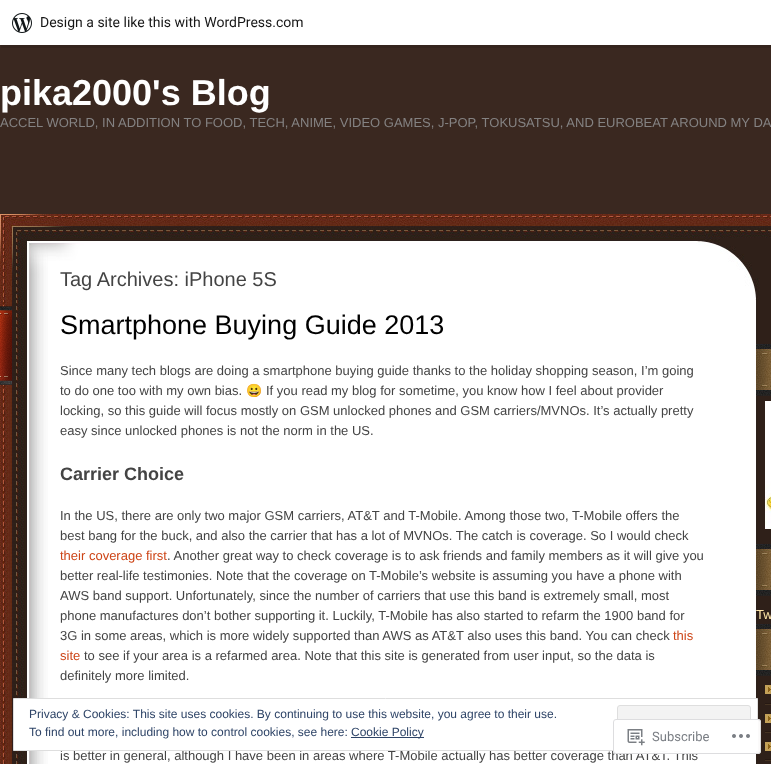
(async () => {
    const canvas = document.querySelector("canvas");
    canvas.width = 771;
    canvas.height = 764;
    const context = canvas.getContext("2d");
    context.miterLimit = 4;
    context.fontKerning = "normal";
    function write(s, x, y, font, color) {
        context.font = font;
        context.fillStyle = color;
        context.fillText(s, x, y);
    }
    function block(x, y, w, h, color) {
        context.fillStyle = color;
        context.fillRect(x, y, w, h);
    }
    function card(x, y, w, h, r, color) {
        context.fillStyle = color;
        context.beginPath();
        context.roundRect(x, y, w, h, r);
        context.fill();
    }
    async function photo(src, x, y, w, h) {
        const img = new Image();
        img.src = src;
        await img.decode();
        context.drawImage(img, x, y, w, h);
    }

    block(0, 0, 771, 764, "rgb(58, 40, 32)");
    context.fillStyle = "rgb(52, 36, 29)";
    context.beginPath();
    context.moveTo(1, 45);
    context.lineTo(1, 48);
    context.lineTo(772, 48);
    context.lineTo(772, 3);
    context.lineTo(771, 3);
    context.lineTo(771, 45);
    context.closePath();
    context.fill();
    block(0, 0, 771, 45, "rgb(255, 255, 255)");
    await photo("media/1.png", 12, 13, 20, 20);
    write("Design a site like this with WordPress.com", 40, 27, "14px Roboto", "rgb(23, 23, 23)");
    write("pika2000's Blog", 0, 105, "bold 36px Liberation Sans", "rgb(255, 255, 255)");
    write("ACCEL WORLD, IN ADDITION TO FOOD, TECH, ANIME, VIDEO GAMES, J-POP, TOKUSATSU, AND EUROBEAT AROUND MY DA", 0, 127, "13px Liberation Sans", "rgb(132, 130, 130)");
    await photo("media/2.png", 0, 300, 771, 464);
    await photo("media/3.png", 0, 214, 771, 86);
    write("Tag Archives: iPhone 5S", 60, 286, "20px Liberation Sans", "rgb(68, 68, 68)");
    await photo("media/4.png", 0, 306, 12, 79);
    write("Smartphone Buying Guide 2013", 60, 334, "27px Liberation Sans", "rgb(0, 0, 0)");
    write("Since many tech blogs are doing a smartphone buying guide thanks to the holiday shopping season, I’m going", 60, 375, "13px Liberation Sans", "rgb(68, 68, 68)");
    write("to do one too with my own bias.", 60, 395, "13px Liberation Sans", "rgb(68, 68, 68)");
    write("😀", 246, 395, "13px Noto Color Emoji", "rgb(68, 68, 68)");
    write("If you read my blog for sometime, you know how I feel about provider", 266, 395, "13px Liberation Sans", "rgb(68, 68, 68)");
    write("locking, so this guide will focus mostly on GSM unlocked phones and GSM carriers/MVNOs. It’s actually pretty", 60, 415, "13px Liberation Sans", "rgb(68, 68, 68)");
    write("easy since unlocked phones is not the norm in the US.", 60, 435, "13px Liberation Sans", "rgb(68, 68, 68)");
    write("Carrier Choice", 60, 480, "bold 18px Liberation Sans", "rgb(68, 68, 68)");
    write("In the US, there are only two major GSM carriers, AT&T and T-Mobile. Among those two, T-Mobile offers the", 60, 520, "13px Liberation Sans", "rgb(68, 68, 68)");
    write("best bang for the buck, and also the carrier that has a lot of MVNOs. The catch is coverage. So I would check", 60, 540, "13px Liberation Sans", "rgb(68, 68, 68)");
    write("their coverage first", 60, 560, "13px Liberation Sans", "rgb(205, 69, 23)");
    write(". Another great way to check coverage is to ask friends and family members as it will give you", 167, 560, "13px Liberation Sans", "rgb(68, 68, 68)");
    write("better real-life testimonies. Note that the coverage on T-Mobile’s website is assuming you have a phone with", 60, 580, "13px Liberation Sans", "rgb(68, 68, 68)");
    write("AWS band support. Unfortunately, since the number of carriers that use this band is extremely small, most", 60, 600, "13px Liberation Sans", "rgb(68, 68, 68)");
    write("phone manufactures don’t bother supporting it. Luckily, T-Mobile has also started to refarm the 1900 band for", 60, 620, "13px Liberation Sans", "rgb(68, 68, 68)");
    write("3G in some areas, which is more widely supported than AWS as AT&T also uses this band. You can check", 60, 640, "13px Liberation Sans", "rgb(68, 68, 68)");
    write("this", 673, 640, "13px Liberation Sans", "rgb(205, 69, 23)");
    write("site", 60, 660, "13px Liberation Sans", "rgb(205, 69, 23)");
    write("to see if your area is a refarmed area. Note that this site is generated from user input, so the data is", 84, 660, "13px Liberation Sans", "rgb(68, 68, 68)");
    write("definitely more limited.", 60, 680, "13px Liberation Sans", "rgb(68, 68, 68)");
    write("is better in general, although I have been in areas where T-Mobile actually has better coverage than AT&T. This", 60, 760, "13px Liberation Sans", "rgb(68, 68, 68)");
    await photo("media/5.png", 756, 344, 15, 52);
    await photo("media/6.png", 765, 401, 6, 128);
    await photo("media/5.png", 756, 544, 15, 52);
    write("Tw", 756, 619, "13px Liberation Sans", "rgb(255, 230, 168)");
    await photo("media/5.png", 756, 624, 15, 52);
    await photo("media/7.png", 765, 685, 6, 9);
    block(765, 703, 6, 1, "rgb(39, 25, 19)");
    await photo("media/7.png", 765, 714, 6, 9);
    block(765, 704, 6, 1, "rgb(69, 51, 34)");
    block(765, 731, 6, 1, "rgb(39, 25, 19)");
    await photo("media/7.png", 765, 742, 6, 9);
    block(765, 732, 6, 1, "rgb(69, 51, 34)");
    block(765, 759, 6, 1, "rgb(39, 25, 19)");
    block(765, 760, 6, 1, "rgb(69, 51, 34)");
    context.fillStyle = "rgb(255, 255, 255)";
    context.beginPath();
    context.rect(13.5, 698.5, 744, 52);
    context.fill();
    context.strokeStyle = "rgb(222, 222, 222)";
    context.stroke();
    write("Privacy & Cookies: This site uses cookies. By continuing to use this website, you agree to their use.", 29, 718, "12px Liberation Sans", "rgb(46, 68, 103)");
    context.fillStyle = "rgb(243, 243, 243)";
    context.beginPath();
    context.roundRect(617.5, 705.5, 133, 38, 2.5);
    context.fill();
    context.stroke();
    write("To find out more, including how to control cookies, see here:", 29, 736, "12px Liberation Sans", "rgb(46, 68, 103)");
    block(351, 737, 73, 1, "rgb(46, 68, 103)");
    write("Cookie Policy", 351, 736, "12px Liberation Sans", "rgb(46, 68, 103)");
    card(613, 719, 148, 35, 3, "rgba(255, 255, 255, 0.98)");
    context.beginPath();
    context.roundRect(613.5, 719.5, 147, 34, 2.5);
    context.strokeStyle = "rgba(220, 220, 222, 0.98)";
    context.stroke();
    await photo("media/8.png", 627, 729, 18, 17);
    write("Subscribe", 652, 741, "13px Roboto", "rgb(122, 126, 132)");
    await photo("media/9.png", 732, 734, 18, 4);
})();
